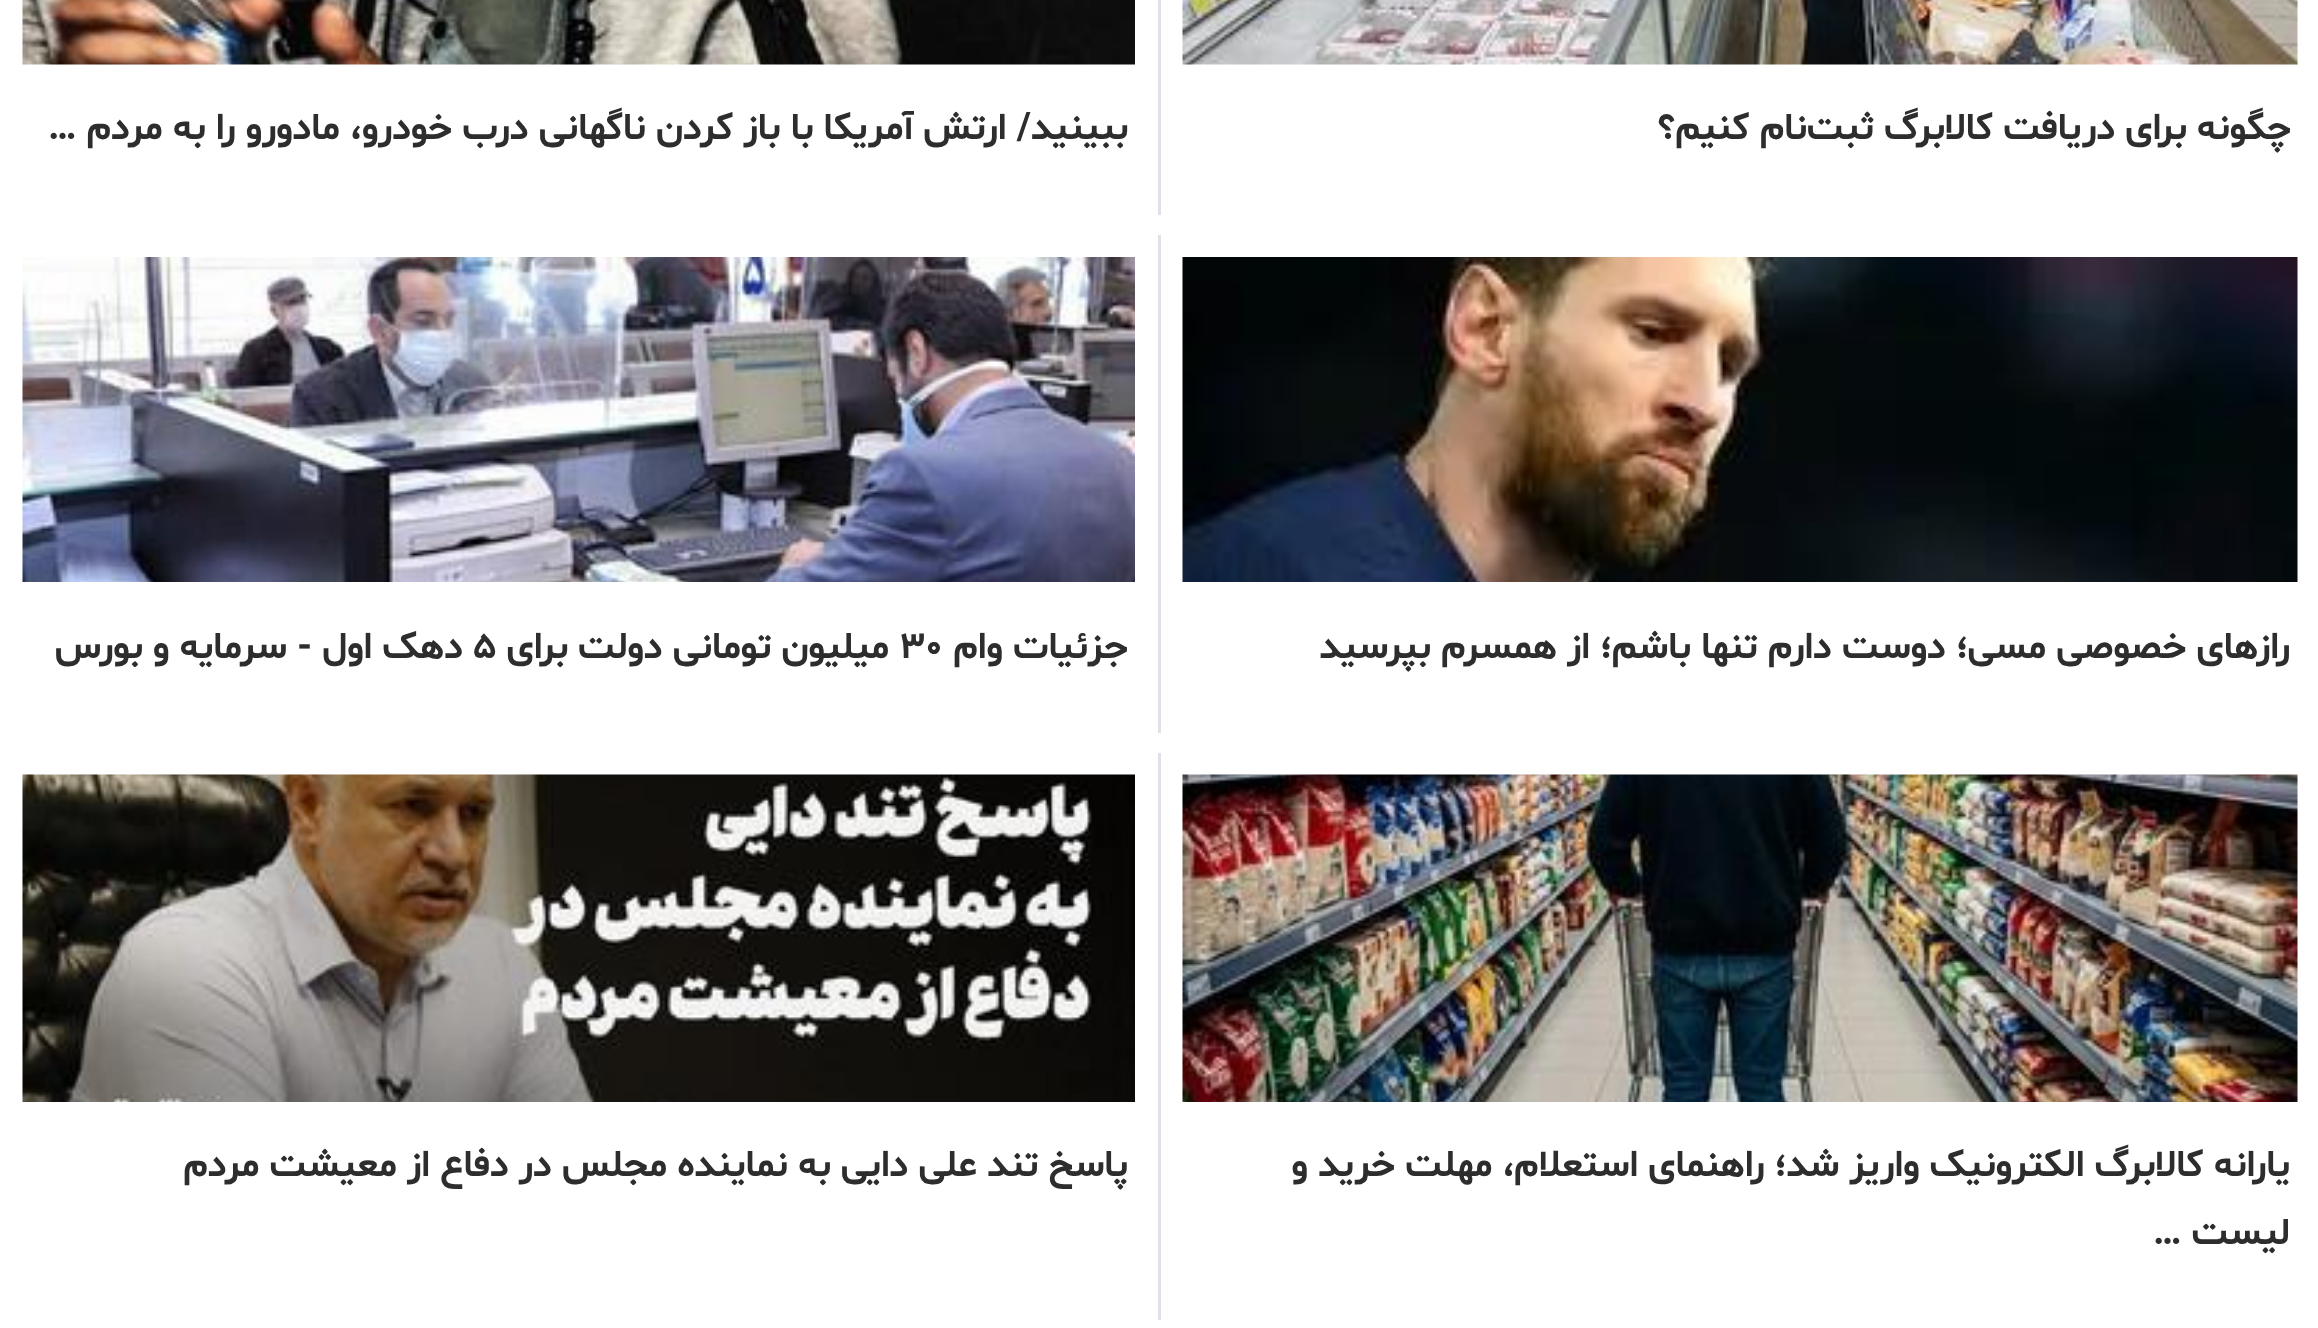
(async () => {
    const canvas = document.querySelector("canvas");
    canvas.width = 2318;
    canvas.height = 1328;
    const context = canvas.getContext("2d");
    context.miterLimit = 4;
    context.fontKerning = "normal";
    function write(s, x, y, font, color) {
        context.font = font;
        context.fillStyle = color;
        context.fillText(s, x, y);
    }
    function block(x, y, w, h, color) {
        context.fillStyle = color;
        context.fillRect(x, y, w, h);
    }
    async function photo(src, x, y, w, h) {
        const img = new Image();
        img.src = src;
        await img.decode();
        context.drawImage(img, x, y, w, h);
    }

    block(0, 0, 2318, 1328, "rgb(255, 255, 255)");
    await photo("media/1.png", 1182, 0, 1116, 65);
    context.direction = "rtl";
    write("چگونه برای دریافت کالابرگ ثبت‌نام کنیم؟", 2291, 139, "bold 38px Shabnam", "rgb(45, 45, 45)");
    block(1158, 0, 3, 215, "rgb(222, 226, 230)");
    await photo("media/2.png", 22, 0, 1113, 65);
    write("ببینید/ ارتش آمریکا با باز کردن ناگهانی درب خودرو، مادورو را به مردم …", 1128, 139, "bold 38px Shabnam", "rgb(45, 45, 45)");
    await photo("media/3.png", 1182, 257, 1116, 325);
    write("رازهای خصوصی مسی؛ دوست دارم تنها باشم؛ از همسرم بپرسید", 2290, 658, "bold 38px Shabnam", "rgb(45, 45, 45)");
    block(1158, 235, 3, 498, "rgb(222, 226, 230)");
    await photo("media/4.png", 22, 257, 1113, 325);
    write("جزئیات وام", 1128, 658, "bold 38px Shabnam", "rgb(45, 45, 45)");
    context.direction = "ltr";
    write("۳۰", 899, 658, "bold 38px Shabnam", "rgb(45, 45, 45)");
    context.direction = "rtl";
    write("میلیون تومانی دولت برای", 889, 658, "bold 38px Shabnam", "rgb(45, 45, 45)");
    context.direction = "ltr";
    write("۵", 473, 658, "bold 38px Shabnam", "rgb(45, 45, 45)");
    context.direction = "rtl";
    write("دهک اول - سرمایه و بورس", 463, 658, "bold 38px Shabnam", "rgb(45, 45, 45)");
    await photo("media/5.png", 1182, 774, 1116, 328);
    write("یارانه کالابرگ الکترونیک واریز شد؛ راهنمای استعلام، مهلت خرید و", 2290, 1176, "bold 38px Shabnam", "rgb(45, 45, 45)");
    write("لیست …", 2290, 1244, "bold 38px Shabnam", "rgb(45, 45, 45)");
    block(1158, 753, 3, 567, "rgb(222, 226, 230)");
    await photo("media/6.png", 22, 774, 1113, 328);
    write("پاسخ تند علی دایی به نماینده مجلس در دفاع از معیشت مردم", 1128, 1176, "bold 38px Shabnam", "rgb(45, 45, 45)");
})();
